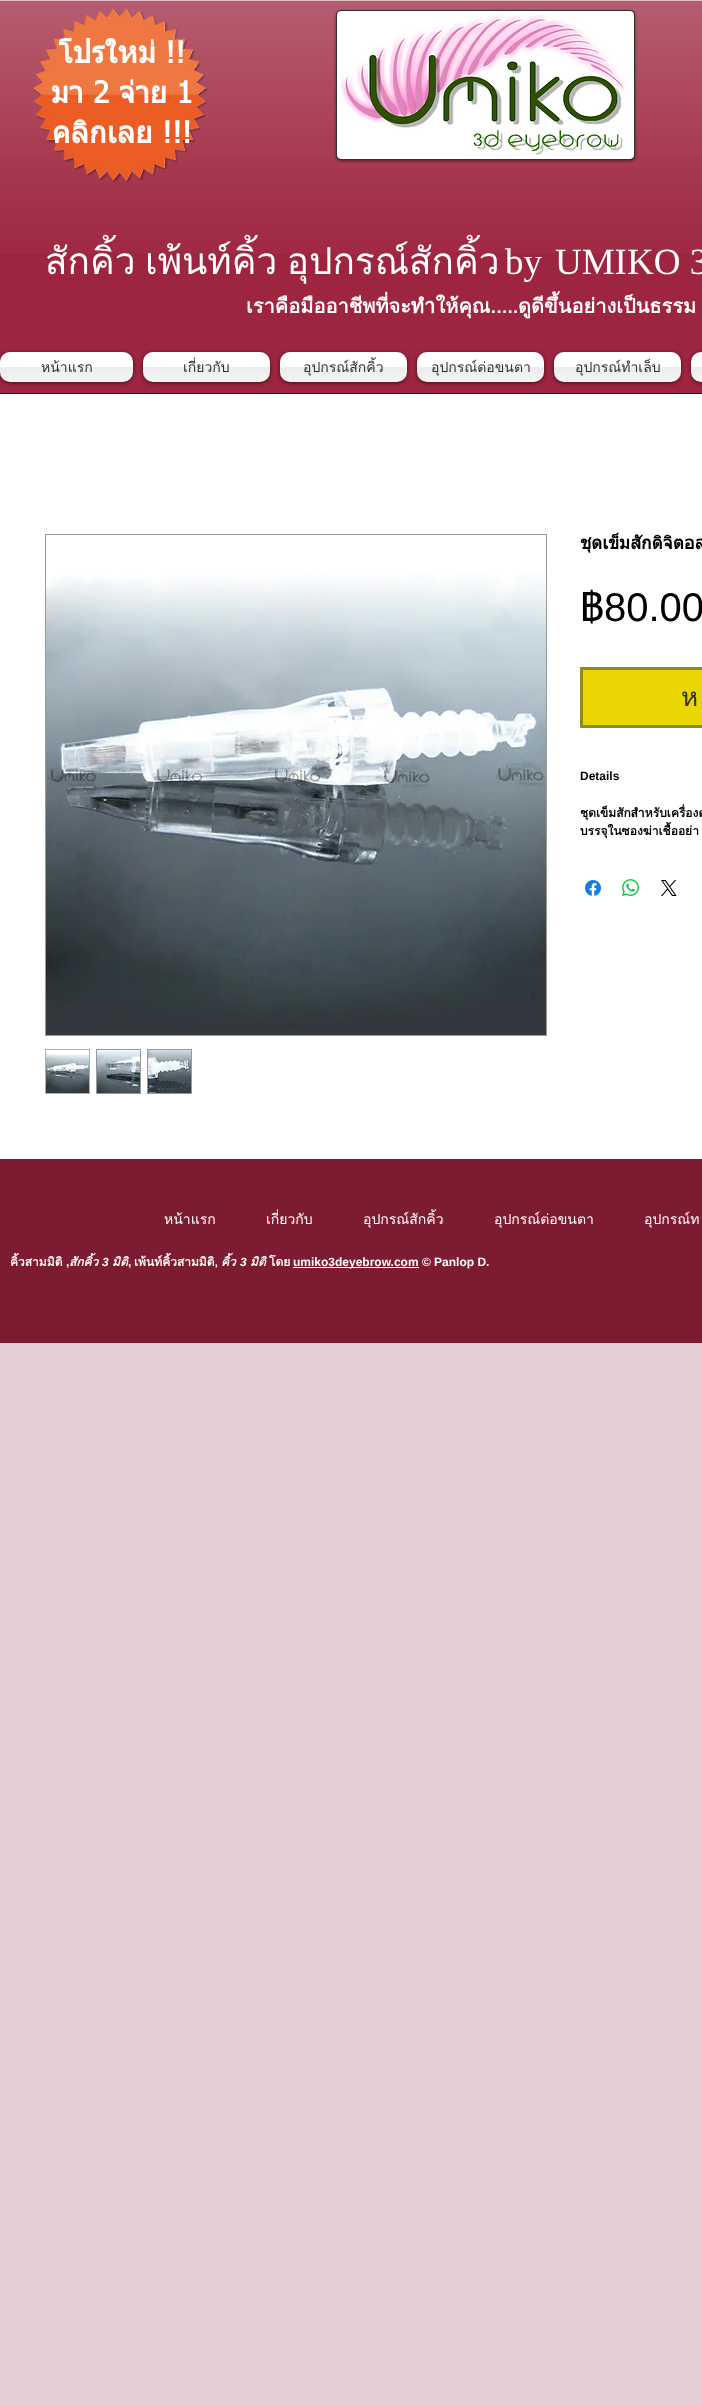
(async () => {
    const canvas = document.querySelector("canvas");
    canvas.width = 702;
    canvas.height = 2406;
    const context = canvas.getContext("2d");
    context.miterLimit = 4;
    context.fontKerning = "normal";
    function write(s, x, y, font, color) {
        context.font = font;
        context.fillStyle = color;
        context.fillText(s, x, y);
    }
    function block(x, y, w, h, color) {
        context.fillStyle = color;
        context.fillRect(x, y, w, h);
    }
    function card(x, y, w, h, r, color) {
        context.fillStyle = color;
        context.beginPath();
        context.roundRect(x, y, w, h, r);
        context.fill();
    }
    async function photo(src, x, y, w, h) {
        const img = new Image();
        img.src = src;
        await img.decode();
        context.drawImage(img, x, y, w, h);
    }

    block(0, 0, 702, 2406, "rgb(229, 206, 211)");
    block(0, 1, 702, 392, "rgb(158, 37, 63)");
    await photo("media/1.png", 0, 1, 702, 253);
    block(0, 393, 702, 1, "rgb(63, 15, 25)");
    block(0, 0, 702, 1, "rgb(226, 190, 198)");
    await photo("media/2.png", 33, 8, 175, 175);
    context.fillStyle = "rgba(0, 0, 0, 0.5)";
    context.filter = "blur(1.5px)";
    context.beginPath();
    context.roundRect(336, 11, 299, 150, 5);
    context.fill();
    context.filter = "none";
    context.beginPath();
    context.roundRect(336.5, 10.5, 298, 149, 4.5);
    context.strokeStyle = "rgb(48, 48, 48)";
    context.stroke();
    await photo("media/3.png", 337, 11, 297, 148);
    write("โปรใหม่ !!", 58, 63, "bold 30px tahoma", "rgb(255, 255, 255)");
    write("มา 2 จ่าย 1", 51, 103, "bold 30px tahoma", "rgb(255, 255, 255)");
    write("คลิกเลย !!!", 52, 143, "bold 30px tahoma", "rgb(255, 255, 255)");
    context.wordSpacing = "-3px";
    write("สักคิ้ว เพ้นท์คิ้ว อุปกรณ์สักคิ้ว", 45, 274, "37px Loma", "rgb(255, 255, 255)");
    context.wordSpacing = "0px";
    write("by", 505, 274, "37px Liberation Serif", "rgb(255, 255, 255)");
    write("UMIKO 3", 555, 274, "37px Liberation Serif", "rgb(255, 255, 255)");
    write("เราคือมืออาชีพที่จะทำให้คุณ.....ดูดีขึ้นอย่างเป็นธรรม", 246, 313, "bold 20px Loma", "rgb(255, 255, 255)");
    context.fillStyle = "rgba(0, 0, 0, 0.6)";
    context.filter = "blur(2px)";
    context.beginPath();
    context.roundRect(0, 353, 133, 30, 10);
    context.fill();
    context.filter = "none";
    card(0, 352, 133, 30, 10, "rgb(255, 255, 255)");
    await photo("media/4.png", 0, 352, 133, 30);
    write("หน้าแรก", 41, 372, "14px Loma", "rgb(48, 48, 48)");
    context.fillStyle = "rgba(0, 0, 0, 0.6)";
    context.filter = "blur(2px)";
    context.beginPath();
    context.roundRect(143, 353, 127, 30, 10);
    context.fill();
    context.filter = "none";
    card(143, 352, 127, 30, 10, "rgb(255, 255, 255)");
    await photo("media/5.png", 143, 352, 127, 30);
    write("เกี่ยวกับ", 183, 372, "14px Loma", "rgb(48, 48, 48)");
    context.fillStyle = "rgba(0, 0, 0, 0.6)";
    context.filter = "blur(2px)";
    context.beginPath();
    context.roundRect(280, 353, 127, 30, 10);
    context.fill();
    context.filter = "none";
    card(280, 352, 127, 30, 10, "rgb(255, 255, 255)");
    await photo("media/6.png", 280, 352, 127, 30);
    write("อุปกรณ์สักคิ้ว", 303, 372, "14px Loma", "rgb(48, 48, 48)");
    context.fillStyle = "rgba(0, 0, 0, 0.6)";
    context.filter = "blur(2px)";
    context.beginPath();
    context.roundRect(417, 353, 127, 30, 10);
    context.fill();
    context.filter = "none";
    card(417, 352, 127, 30, 10, "rgb(255, 255, 255)");
    await photo("media/6.png", 417, 352, 127, 30);
    write("อุปกรณ์ต่อขนตา", 431, 372, "14px Loma", "rgb(48, 48, 48)");
    context.fillStyle = "rgba(0, 0, 0, 0.6)";
    context.filter = "blur(2px)";
    context.beginPath();
    context.roundRect(554, 353, 127, 30, 10);
    context.fill();
    context.filter = "none";
    card(554, 352, 127, 30, 10, "rgb(255, 255, 255)");
    await photo("media/5.png", 554, 352, 127, 30);
    write("อุปกรณ์ทำเล็บ", 575, 372, "14px Loma", "rgb(48, 48, 48)");
    context.fillStyle = "rgba(0, 0, 0, 0.6)";
    context.filter = "blur(2px)";
    context.beginPath();
    context.roundRect(691, 353, 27, 30, 10);
    context.fill();
    context.filter = "none";
    card(691, 352, 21, 30, 10, "rgb(255, 255, 255)");
    await photo("media/7.png", 691, 352, 11, 30);
    block(0, 394, 702, 765, "rgb(255, 255, 255)");
    context.strokeStyle = "rgb(153, 153, 153)";
    context.strokeRect(45.5, 534.5, 501, 501);
    await photo("media/8.png", 46, 574, 500, 461);
    context.strokeStyle = "rgb(196, 188, 47)";
    context.strokeRect(45.5, 1049.5, 44, 44);
    await photo("media/9.png", 46, 1050, 43, 43);
    block(96, 1049, 45, 45, "rgb(153, 153, 153)");
    await photo("media/10.png", 97, 1050, 43, 43);
    block(147, 1049, 45, 45, "rgb(153, 153, 153)");
    await photo("media/11.png", 148, 1050, 43, 43);
    write("ชุดเข็มสักดิจิตอล", 580, 549, "bold 18px tahoma", "rgb(0, 0, 0)");
    write("฿", 580, 621, "40px Loma", "rgb(0, 0, 0)");
    write("80.00", 604, 621, "40px Liberation Sans", "rgb(0, 0, 0)");
    context.fillStyle = "rgb(234, 214, 3)";
    context.beginPath();
    context.rect(581.5, 668.5, 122, 58);
    context.fill();
    context.strokeStyle = "rgb(143, 139, 32)";
    context.lineWidth = 3;
    context.stroke();
    write("ห", 681, 706, "26px Loma", "rgb(48, 48, 48)");
    write("Details", 580, 780, "bold 12px Liberation Sans", "rgb(0, 0, 0)");
    write("ชุดเข็มสักสำหรับเครื่องด", 580, 817, "bold 12px Loma", "rgb(0, 0, 0)");
    write("บรรจุในซองฆ่าเชื้ออย่า", 580, 835, "bold 12px Loma", "rgb(0, 0, 0)");
    await photo("media/12.png", 585, 880, 16, 16);
    await photo("media/13.png", 622, 879, 17, 17);
    await photo("media/14.png", 661, 880, 16, 16);
    block(0, 1159, 702, 184, "rgb(125, 28, 48)");
    write("หน้าแรก", 164, 1224, "14px Loma", "rgb(255, 255, 255)");
    write("เกี่ยวกับ", 266, 1224, "14px Loma", "rgb(255, 255, 255)");
    write("อุปกรณ์สักคิ้ว", 363, 1224, "14px Loma", "rgb(255, 255, 255)");
    write("อุปกรณ์ต่อขนตา", 494, 1224, "14px Loma", "rgb(255, 255, 255)");
    write("อุปกรณ์ท", 644, 1224, "14px Loma", "rgb(255, 255, 255)");
    write("คิ้วสามมิติ", 10, 1266, "bold 12px Loma", "rgb(255, 255, 255)");
    write(",", 66, 1266, "bold 12px Liberation Sans", "rgb(255, 255, 255)");
    write("สักคิ้ว", 69, 1266, "italic bold 12px Loma", "rgb(255, 255, 255)");
    write("3", 102, 1266, "italic bold 12px Liberation Sans", "rgb(255, 255, 255)");
    write("มิติ", 112, 1266, "italic bold 12px Loma", "rgb(255, 255, 255)");
    write("เพ้นท์คิ้วสามมิติ,", 134, 1266, "bold 12px Loma", "rgb(255, 255, 255)");
    write("คิ้ว", 221, 1266, "italic bold 12px Loma", "rgb(255, 255, 255)");
    write("3", 240, 1266, "italic bold 12px Liberation Sans", "rgb(255, 255, 255)");
    write("มิติ", 250, 1266, "italic bold 12px Loma", "rgb(255, 255, 255)");
    write("โดย", 269, 1266, "bold 12px Loma", "rgb(255, 255, 255)");
    block(293, 1267, 126, 1, "rgb(255, 255, 255)");
    write("umiko3deyebrow.com © Panlop D.", 293, 1266, "bold 12px Liberation Sans", "rgb(255, 255, 255)");
    write(",", 128, 1266, "bold 12px Liberation Sans", "rgb(255, 255, 255)");
})();
